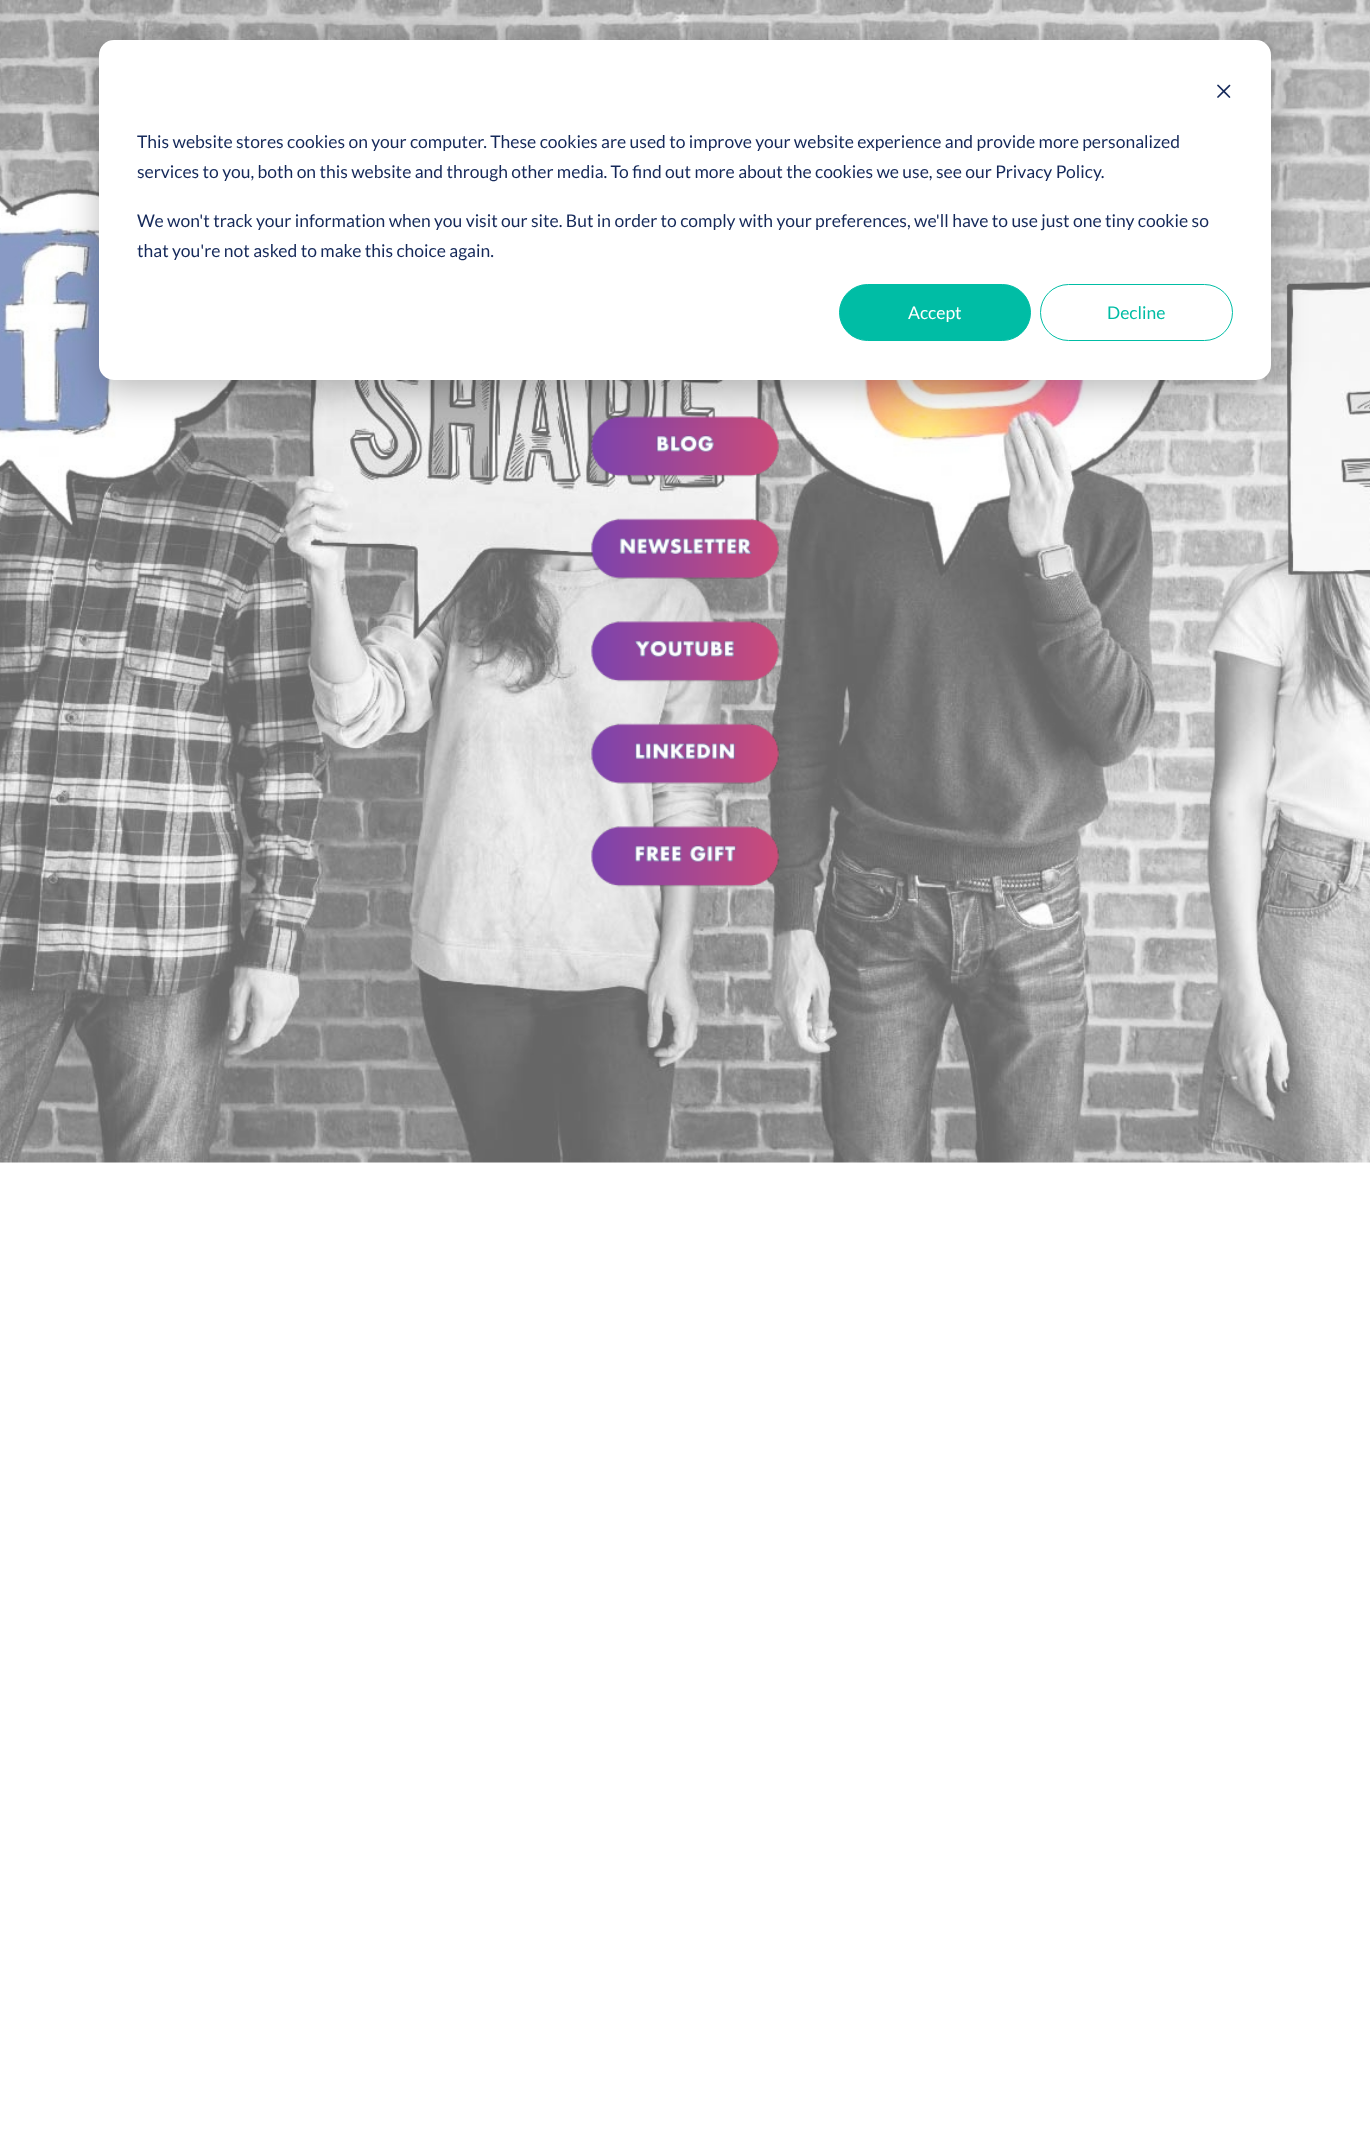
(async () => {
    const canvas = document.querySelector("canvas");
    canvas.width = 1370;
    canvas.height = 2141;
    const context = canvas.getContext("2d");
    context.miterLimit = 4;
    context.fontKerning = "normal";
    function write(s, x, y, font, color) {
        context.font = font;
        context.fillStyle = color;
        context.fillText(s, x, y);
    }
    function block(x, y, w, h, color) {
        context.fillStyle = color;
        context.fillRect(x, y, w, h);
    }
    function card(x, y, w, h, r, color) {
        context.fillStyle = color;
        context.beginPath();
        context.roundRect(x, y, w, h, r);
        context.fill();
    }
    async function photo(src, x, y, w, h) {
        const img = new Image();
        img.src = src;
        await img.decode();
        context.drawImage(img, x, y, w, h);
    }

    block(0, 0, 1370, 2141, "rgb(255, 255, 255)");
    await photo("media/1.png", 0, 0, 1370, 1163);
    await photo("media/2.png", 591, 416, 188, 61);
    await photo("media/3.png", 591, 518, 188, 61);
    await photo("media/4.png", 591, 621, 188, 61);
    await photo("media/5.png", 591, 723, 188, 61);
    await photo("media/6.png", 591, 826, 188, 61);
    context.fillStyle = "rgba(0, 0, 0, 0.28)";
    context.filter = "blur(17.5px)";
    context.beginPath();
    context.roundRect(99, 50, 1172, 340, 15);
    context.fill();
    context.filter = "none";
    card(99, 40, 1172, 340, 15, "rgb(255, 255, 255)");
    await photo("media/7.png", 1217, 84, 14, 14);
    write("This website stores cookies on your computer. These cookies are used to improve your website experience and provide more personalized", 137, 148, "17.5px Lato", "rgb(21, 41, 90)");
    write("services to you, both on this website and through other media. To find out more about the cookies we use, see our Privacy Policy.", 137, 178, "17.5px Lato", "rgb(21, 41, 90)");
    write("We won't track your information when you visit our site. But in order to comply with your preferences, we'll have to use just one tiny cookie so", 137, 227, "17.5px Lato", "rgb(21, 41, 90)");
    write("that you're not asked to make this choice again.", 137, 257, "17.5px Lato", "rgb(21, 41, 90)");
    context.fillStyle = "rgb(0, 189, 165)";
    context.beginPath();
    context.roundRect(839.5, 284.5, 191, 56, 28);
    context.fill();
    context.strokeStyle = "rgb(0, 189, 165)";
    context.stroke();
    write("Accept", 908, 319, "17.5px Lato", "rgb(255, 255, 255)");
    context.beginPath();
    context.roundRect(1040.5, 284.5, 192, 56, 28);
    context.stroke();
    write("Decline", 1107, 319, "17.5px Lato", "rgb(0, 189, 165)");
})();
